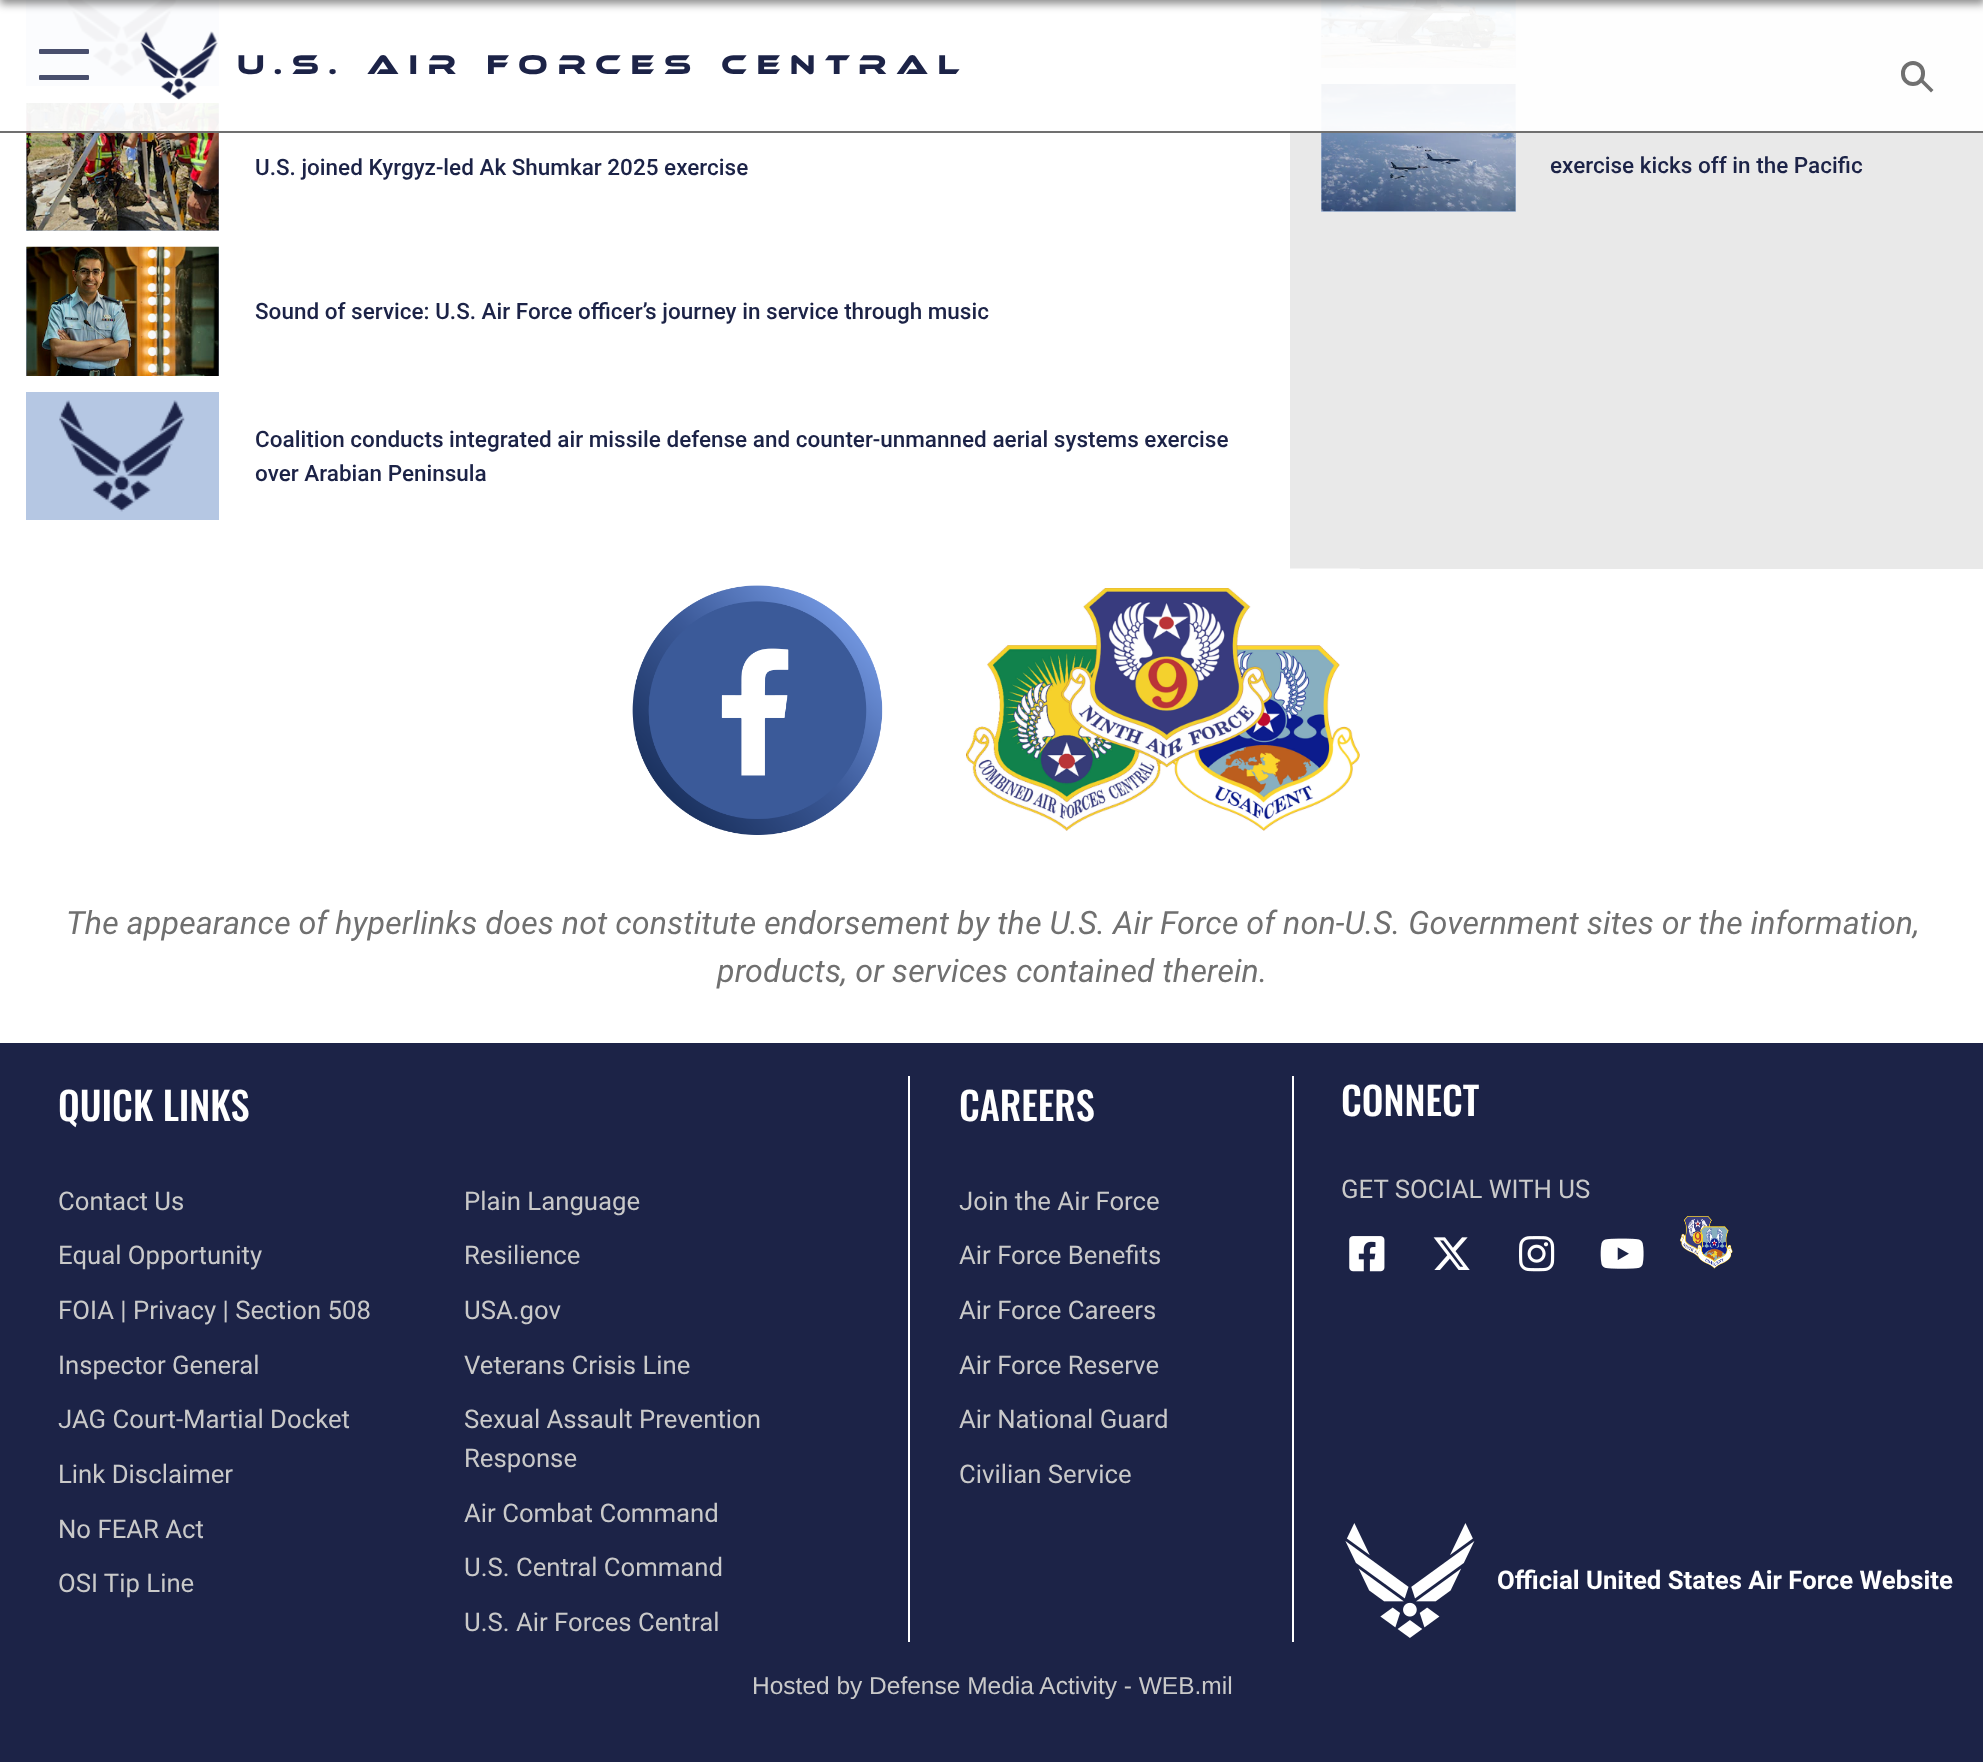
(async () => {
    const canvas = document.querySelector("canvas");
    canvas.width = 1983;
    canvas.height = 1762;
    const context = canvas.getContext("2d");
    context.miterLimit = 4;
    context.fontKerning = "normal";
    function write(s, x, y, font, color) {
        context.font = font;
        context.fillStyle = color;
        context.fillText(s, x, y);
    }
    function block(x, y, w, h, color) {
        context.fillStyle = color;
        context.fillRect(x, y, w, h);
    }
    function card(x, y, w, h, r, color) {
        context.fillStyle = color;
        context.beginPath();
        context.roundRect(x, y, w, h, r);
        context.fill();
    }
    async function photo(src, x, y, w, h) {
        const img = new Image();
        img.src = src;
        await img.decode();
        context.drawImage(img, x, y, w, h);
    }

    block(0, 0, 1983, 1762, "rgb(255, 255, 255)");
    block(1290, 0, 693, 569, "rgb(233, 233, 233)");
    block(26, 0, 193, 86, "rgb(181, 199, 227)");
    await photo("media/2.png", 66, 0, 112, 78);
    block(26, 103, 193, 128, "rgb(181, 199, 227)");
    await photo("media/3.png", 26, 103, 193, 128);
    block(1321, 0, 195, 68, "rgb(181, 199, 227)");
    await photo("media/6.png", 1321, 0, 195, 68);
    block(1321, 84, 195, 128, "rgb(181, 199, 227)");
    await photo("media/7.png", 1321, 83, 195, 129);
    block(26, 0, 1957, 131, "rgba(255, 255, 255, 0.95)");
    context.fillStyle = "rgba(0, 0, 0, 0.45)";
    context.filter = "blur(4.5px)";
    context.beginPath();
    context.rect(0, -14, 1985, 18);
    context.fill();
    context.filter = "none";
    block(0, 131, 1983, 2, "rgb(112, 112, 112)");
    card(39, 49, 50, 5, 1, "rgb(73, 79, 109)");
    card(39, 75, 50, 5, 1, "rgb(73, 79, 109)");
    await photo("media/1.png", 140, 31, 78, 69);
    context.letterSpacing = "9.65px";
    write("U.S. Air Forces Central", 237, 74, "28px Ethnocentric", "rgb(28, 35, 71)");
    context.beginPath();
    context.roundRect(1903, 63, 20, 21, 10);
    context.strokeStyle = "rgb(112, 112, 112)";
    context.lineWidth = 4;
    context.stroke();
    context.fillStyle = "rgb(112, 112, 112)";
    context.beginPath();
    context.moveTo(1921, 77.5);
    context.lineTo(1933.5, 90);
    context.lineTo(1931, 92.5);
    context.lineTo(1918.5, 80);
    context.closePath();
    context.fill();
    context.letterSpacing = "0px";
    write("U.S. joined Kyrgyz-led Ak Shumkar 2025 exercise", 255, 175, "500 22.5px Roboto", "rgb(28, 35, 71)");
    block(26, 247, 193, 129, "rgb(181, 199, 227)");
    await photo("media/4.png", 26, 246, 193, 130);
    write("Sound of service: U.S. Air Force officer’s journey in service through music", 255, 319, "500 22.5px Roboto", "rgb(28, 35, 71)");
    block(26, 392, 193, 128, "rgb(181, 199, 227)");
    await photo("media/5.png", 59, 400, 126, 112);
    write("Coalition conducts integrated air missile defense and counter-unmanned aerial systems exercise", 255, 447, "500 22.5px Roboto", "rgb(28, 35, 71)");
    write("over Arabian Peninsula", 255, 481, "500 22.5px Roboto", "rgb(28, 35, 71)");
    write("exercise kicks off in the Pacific", 1550, 173, "500 22.5px Roboto", "rgb(28, 35, 71)");
    await photo("media/8.png", 632, 585, 251, 250);
    await photo("media/9.png", 966, 568, 394, 263);
    write("The appearance of hyperlinks does not constitute endorsement by the U.S. Air Force of non-U.S. Government sites or the information,", 66, 934, "italic 32.15px Roboto", "rgb(112, 112, 112)");
    write("products, or services contained therein.", 717, 982, "italic 32.15px Roboto", "rgb(112, 112, 112)");
    block(0, 1043, 1983, 719, "rgb(28, 35, 71)");
    write("QUICK LINKS", 58, 1121, "500 38.5px Oswald", "rgb(255, 255, 255)");
    write("Contact Us", 58, 1210, "25.75px Roboto", "rgb(201, 201, 201)");
    write("Plain Language", 464, 1210, "25.75px Roboto", "rgb(201, 201, 201)");
    write("Equal Opportunity", 58, 1264, "25.75px Roboto", "rgb(201, 201, 201)");
    write("Resilience", 464, 1264, "25.75px Roboto", "rgb(201, 201, 201)");
    write("FOIA | Privacy | Section 508", 58, 1319, "25.75px Roboto", "rgb(201, 201, 201)");
    write("USA.gov", 464, 1319, "25.75px Roboto", "rgb(201, 201, 201)");
    write("Inspector General", 58, 1374, "25.75px Roboto", "rgb(201, 201, 201)");
    write("Veterans Crisis Line", 464, 1374, "25.75px Roboto", "rgb(201, 201, 201)");
    write("JAG Court-Martial Docket", 58, 1428, "25.75px Roboto", "rgb(201, 201, 201)");
    write("Sexual Assault Prevention", 464, 1428, "25.75px Roboto", "rgb(201, 201, 201)");
    write("Response", 464, 1467, "25.75px Roboto", "rgb(201, 201, 201)");
    write("Link Disclaimer", 58, 1483, "25.75px Roboto", "rgb(201, 201, 201)");
    write("Air Combat Command", 464, 1522, "25.75px Roboto", "rgb(201, 201, 201)");
    write("No FEAR Act", 58, 1538, "25.75px Roboto", "rgb(201, 201, 201)");
    write("U.S. Central Command", 464, 1576, "25.75px Roboto", "rgb(201, 201, 201)");
    write("OSI Tip Line", 58, 1592, "25.75px Roboto", "rgb(201, 201, 201)");
    write("U.S. Air Forces Central", 464, 1631, "25.75px Roboto", "rgb(201, 201, 201)");
    block(1292, 1076, 2, 566, "rgb(255, 255, 255)");
    block(908, 1076, 2, 566, "rgb(255, 255, 255)");
    write("CAREERS", 959, 1121, "500 38.5px Oswald", "rgb(255, 255, 255)");
    write("Join the Air Force", 959, 1210, "25.75px Roboto", "rgb(201, 201, 201)");
    write("Air Force Benefits", 959, 1264, "25.75px Roboto", "rgb(201, 201, 201)");
    write("Air Force Careers", 959, 1319, "25.75px Roboto", "rgb(201, 201, 201)");
    write("Air Force Reserve", 959, 1374, "25.75px Roboto", "rgb(201, 201, 201)");
    write("Air National Guard", 959, 1428, "25.75px Roboto", "rgb(201, 201, 201)");
    write("Civilian Service", 959, 1483, "25.75px Roboto", "rgb(201, 201, 201)");
    write("CONNECT", 1341, 1116, "500 38.5px Oswald", "rgb(255, 255, 255)");
    write("GET SOCIAL WITH US", 1341, 1198, "25.75px Roboto", "rgb(201, 201, 201)");
    await photo("media/10.png", 1349, 1236, 36, 36);
    await photo("media/11.png", 1433, 1237, 37, 33);
    await photo("media/12.png", 1519, 1236, 36, 36);
    await photo("media/13.png", 1600, 1238, 44, 31);
    await photo("media/14.png", 1680, 1216, 53, 53);
    await photo("media/15.png", 1345, 1523, 130, 115);
    write("Official United States Air Force Website", 1497, 1589, "bold 25.75px Roboto", "rgb(255, 255, 255)");
    write("Hosted by Defense Media Activity - WEB.mil", 752, 1694, "24.5px Liberation Sans", "rgb(201, 201, 201)");
})();
